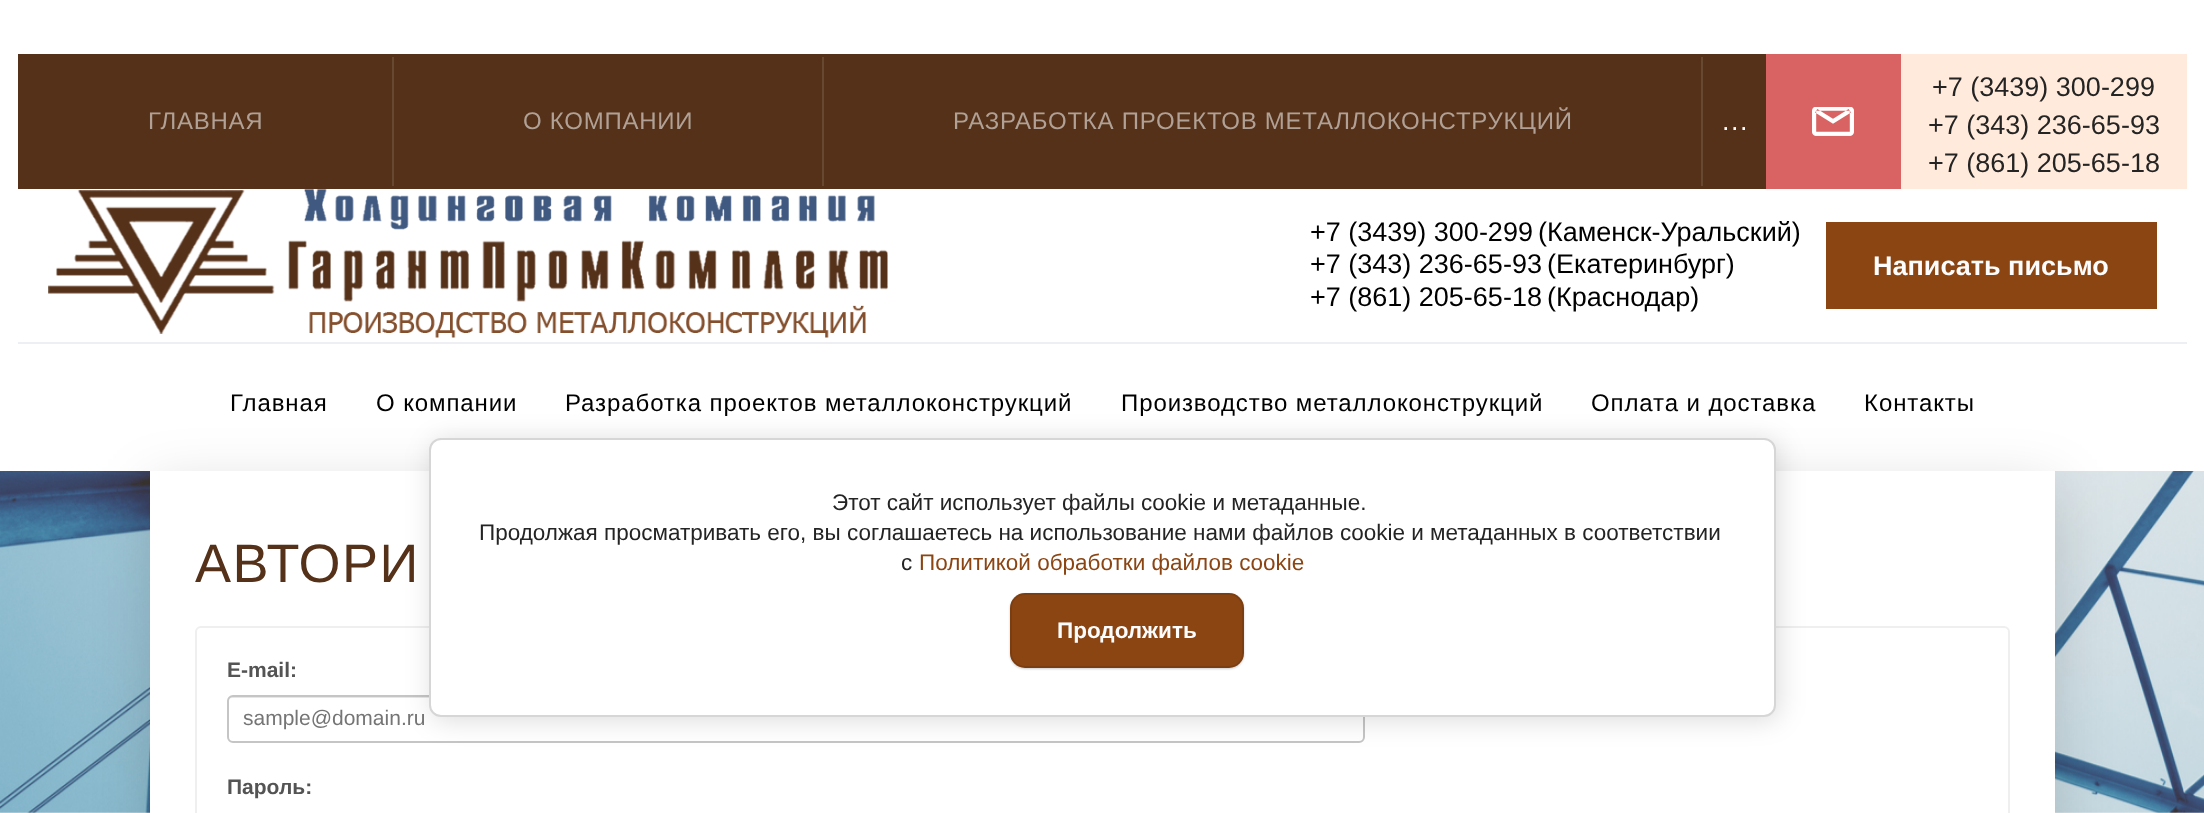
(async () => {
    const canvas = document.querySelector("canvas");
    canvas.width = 2204;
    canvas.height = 813;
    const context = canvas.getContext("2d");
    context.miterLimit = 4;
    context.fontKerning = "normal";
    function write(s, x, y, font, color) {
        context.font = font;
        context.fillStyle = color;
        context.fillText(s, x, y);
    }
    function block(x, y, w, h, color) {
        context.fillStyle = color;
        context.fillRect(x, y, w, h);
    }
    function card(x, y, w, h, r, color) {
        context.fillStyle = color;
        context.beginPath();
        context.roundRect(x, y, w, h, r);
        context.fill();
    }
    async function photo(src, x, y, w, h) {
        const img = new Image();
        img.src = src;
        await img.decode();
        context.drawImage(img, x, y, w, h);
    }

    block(0, 0, 2204, 813, "rgb(255, 255, 255)");
    await photo("media/1.png", 0, 471, 2204, 342);
    block(18, 54, 1748, 135, "rgb(84, 49, 24)");
    block(392, 57, 2, 129, "rgb(103, 72, 49)");
    context.letterSpacing = "0.75px";
    write("ГЛАВНАЯ", 148, 129, "24px Liberation Sans", "rgb(176, 160, 149)");
    block(822, 57, 2, 129, "rgb(103, 72, 49)");
    write("О КОМПАНИИ", 523, 129, "24px Liberation Sans", "rgb(176, 160, 149)");
    block(1701, 57, 2, 129, "rgb(103, 72, 49)");
    write("РАЗРАБОТКА ПРОЕКТОВ МЕТАЛЛОКОНСТРУКЦИЙ", 953, 129, "24px Liberation Sans", "rgb(176, 160, 149)");
    context.letterSpacing = "1.5px";
    write("...", 1722, 130, "27px Liberation Sans", "rgb(253, 253, 253)");
    block(1766, 54, 135, 135, "rgb(217, 98, 98)");
    await photo("media/2.png", 1812, 107, 42, 29);
    block(1901, 54, 286, 135, "rgb(255, 234, 219)");
    context.letterSpacing = "0px";
    write("+7 (3439) 300-299", 1932, 96, "27px Liberation Sans", "rgb(36, 36, 36)");
    write("+7 (343) 236-65-93", 1928, 134, "27px Liberation Sans", "rgb(36, 36, 36)");
    write("+7 (861) 205-65-18", 1928, 172, "27px Liberation Sans", "rgb(36, 36, 36)");
    block(18, 342, 2169, 2, "rgb(237, 239, 243)");
    await photo("media/3.png", 48, 189, 840, 149);
    write("+7 (3439) 300-299", 1310, 241, "27px Liberation Sans", "rgb(0, 0, 0)");
    write("(Каменск-Уральский)", 1538, 241, "27px Liberation Sans", "rgb(0, 0, 0)");
    write("+7 (343) 236-65-93", 1310, 273, "27px Liberation Sans", "rgb(0, 0, 0)");
    write("(Екатеринбург)", 1547, 273, "27px Liberation Sans", "rgb(0, 0, 0)");
    write("+7 (861) 205-65-18", 1310, 306, "27px Liberation Sans", "rgb(0, 0, 0)");
    write("(Краснодар)", 1547, 306, "27px Liberation Sans", "rgb(0, 0, 0)");
    block(1826, 222, 331, 87, "rgb(139, 69, 19)");
    write("Написать письмо", 1873, 275, "bold 27px Liberation Sans", "rgb(253, 253, 253)");
    context.letterSpacing = "0.9px";
    write("Главная", 230, 411, "24px Liberation Sans", "rgb(0, 0, 0)");
    write("О компании", 376, 411, "24px Liberation Sans", "rgb(0, 0, 0)");
    write("Разработка проектов металлоконструкций", 565, 411, "24px Liberation Sans", "rgb(0, 0, 0)");
    write("Производство металлоконструкций", 1121, 411, "24px Liberation Sans", "rgb(0, 0, 0)");
    write("Оплата и доставка", 1591, 411, "24px Liberation Sans", "rgb(0, 0, 0)");
    write("Контакты", 1864, 411, "24px Liberation Sans", "rgb(0, 0, 0)");
    context.fillStyle = "rgba(0, 0, 0, 0.15)";
    context.filter = "blur(28.5px)";
    context.beginPath();
    context.rect(150, 486, 1905, 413);
    context.fill();
    context.filter = "none";
    block(150, 471, 1905, 342, "rgb(255, 255, 255)");
    context.letterSpacing = "1.5px";
    write("АВТОРИ", 195, 582, "54px Liberation Sans", "rgb(84, 49, 24)");
    context.beginPath();
    context.roundRect(196, 627, 1813, 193, 5);
    context.strokeStyle = "rgb(239, 239, 239)";
    context.lineWidth = 2;
    context.stroke();
    context.letterSpacing = "0px";
    write("E-mail:", 227, 677, "bold 21px Liberation Sans", "rgb(84, 84, 84)");
    context.fillStyle = "rgb(230, 230, 230)";
    context.beginPath();
    context.moveTo(232, 698);
    context.lineTo(1359, 698);
    context.bezierCurveTo(1361, 698, 1364, 700, 1364, 702);
    context.bezierCurveTo(1364, 699, 1362, 696, 1359, 696);
    context.lineTo(233, 696);
    context.bezierCurveTo(230, 696, 228, 699, 228, 702);
    context.bezierCurveTo(228, 700, 230, 698, 232, 698);
    context.closePath();
    context.fill();
    context.beginPath();
    context.roundRect(228, 696, 1136, 46, 5);
    context.strokeStyle = "rgb(197, 197, 197)";
    context.stroke();
    write("sample@domain.ru", 243, 725, "21px Liberation Sans", "rgb(117, 117, 117)");
    write("Пароль:", 227, 794, "bold 21px Liberation Sans", "rgb(84, 84, 84)");
    context.fillStyle = "rgba(0, 0, 0, 0.14)";
    context.filter = "blur(13.5px)";
    context.beginPath();
    context.roundRect(432, 441, 1347, 279, 12);
    context.fill();
    context.filter = "none";
    context.fillStyle = "rgb(255, 255, 255)";
    context.beginPath();
    context.roundRect(430, 439, 1345, 277, 11);
    context.fill();
    context.strokeStyle = "rgb(214, 214, 214)";
    context.stroke();
    write("Этот сайт использует файлы cookie и метаданные.", 832, 510, "22.5px Liberation Sans", "rgb(36, 36, 36)");
    write("Продолжая просматривать его, вы соглашаетесь на использование нами файлов cookie и метаданных в соответствии", 479, 540, "22.5px Liberation Sans", "rgb(36, 36, 36)");
    write("с", 901, 570, "22.5px Liberation Sans", "rgb(36, 36, 36)");
    write("Политикой обработки файлов cookie", 919, 570, "22.5px Liberation Sans", "rgb(139, 69, 19)");
    context.fillStyle = "rgba(0, 0, 0, 0.2)";
    context.filter = "blur(1px)";
    context.beginPath();
    context.roundRect(1010, 594, 234, 75, 15);
    context.fill();
    context.filter = "none";
    card(1010, 593, 234, 75, 15, "rgb(139, 69, 19)");
    context.beginPath();
    context.roundRect(1011, 594, 232, 73, 14);
    context.strokeStyle = "rgba(0, 0, 0, 0.1)";
    context.stroke();
    write("Продолжить", 1057, 638, "bold 22.5px Liberation Sans", "rgb(253, 253, 253)");
})();
